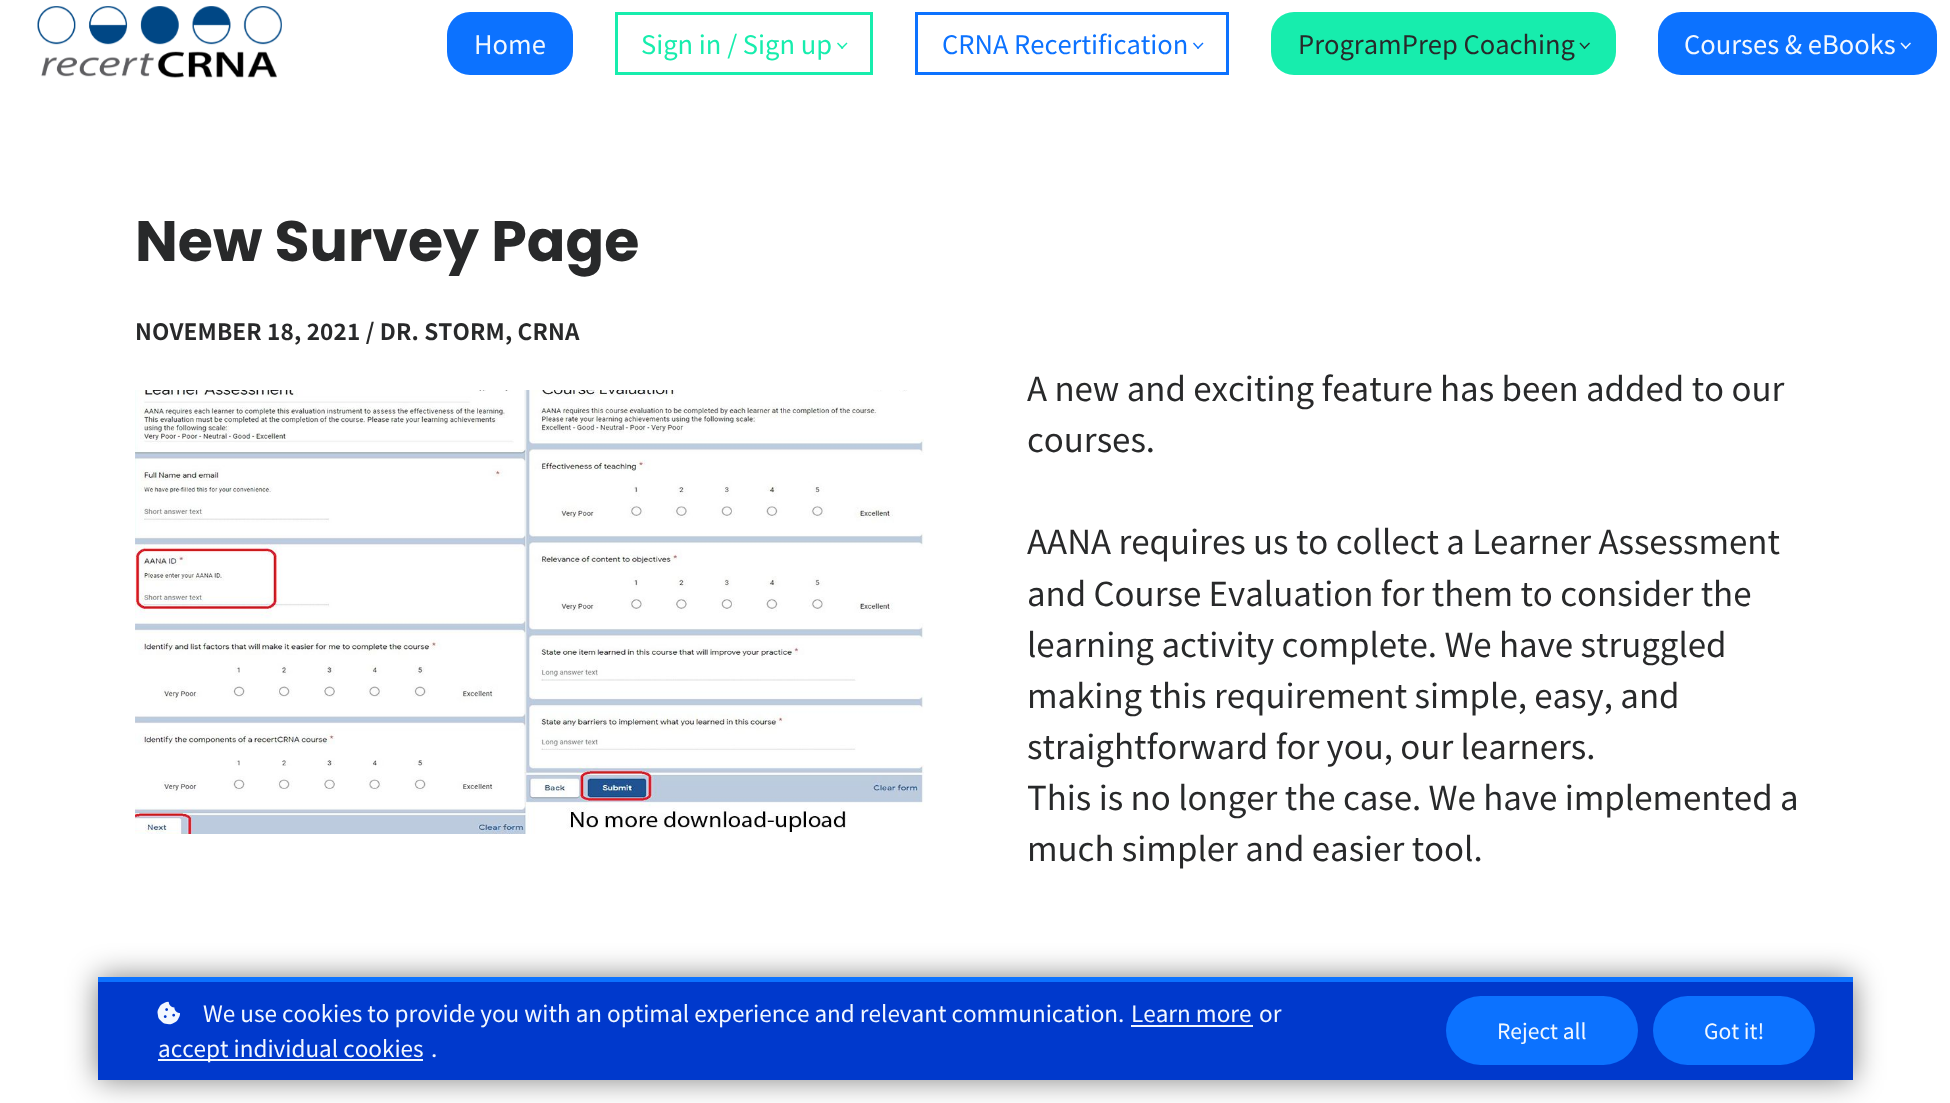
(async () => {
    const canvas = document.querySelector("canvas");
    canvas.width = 1950;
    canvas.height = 1103;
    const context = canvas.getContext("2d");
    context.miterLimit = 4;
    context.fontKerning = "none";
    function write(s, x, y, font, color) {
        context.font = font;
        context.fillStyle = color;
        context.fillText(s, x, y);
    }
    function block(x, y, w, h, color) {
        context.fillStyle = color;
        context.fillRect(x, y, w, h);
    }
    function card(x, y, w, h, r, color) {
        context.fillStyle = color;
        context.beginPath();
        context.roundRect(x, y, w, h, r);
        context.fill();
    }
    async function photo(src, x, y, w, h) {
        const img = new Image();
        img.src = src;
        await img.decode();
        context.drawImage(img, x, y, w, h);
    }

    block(0, 0, 1950, 1103, "rgb(255, 255, 255)");
    await photo("media/1.png", 37, 6, 245, 72);
    card(447, 12, 126, 63, 23, "rgb(12, 114, 255)");
    write("Home", 474, 54, "25.5px Noto Sans JP", "rgb(243, 248, 255)");
    context.strokeStyle = "rgb(23, 237, 173)";
    context.lineWidth = 3;
    context.strokeRect(616.5, 13.5, 255, 60);
    write("Sign in / Sign up", 641, 54, "25.5px Noto Sans JP", "rgb(23, 237, 173)");
    context.beginPath();
    context.moveTo(847.5, 43.5);
    context.lineTo(842, 49);
    context.lineTo(841, 48);
    context.lineTo(846.5, 42.5);
    context.closePath();
    context.fill();
    context.beginPath();
    context.moveTo(843.5, 48);
    context.lineTo(842, 49);
    context.lineTo(837, 43.5);
    context.lineTo(838, 42.5);
    context.closePath();
    context.fill();
    context.strokeStyle = "rgb(12, 114, 255)";
    context.strokeRect(916.5, 13.5, 311, 60);
    write("CRNA Recertification", 942, 54, "25.5px Noto Sans JP", "rgb(12, 114, 255)");
    context.beginPath();
    context.moveTo(1203.5, 43.5);
    context.lineTo(1198, 49);
    context.lineTo(1197, 48);
    context.lineTo(1202.5, 42.5);
    context.closePath();
    context.fill();
    context.beginPath();
    context.moveTo(1199, 48);
    context.lineTo(1198, 49);
    context.lineTo(1193, 43.5);
    context.lineTo(1194, 42.5);
    context.closePath();
    context.fill();
    card(1271, 12, 345, 63, 23, "rgb(23, 237, 173)");
    write("ProgramPrep Coaching", 1298, 54, "25.5px Noto Sans JP", "rgb(40, 41, 42)");
    context.beginPath();
    context.moveTo(1590, 43.5);
    context.lineTo(1584.5, 49);
    context.lineTo(1583.5, 48);
    context.lineTo(1589, 42.5);
    context.closePath();
    context.fill();
    context.beginPath();
    context.moveTo(1585.5, 48);
    context.lineTo(1584.5, 49);
    context.lineTo(1579.5, 43.5);
    context.lineTo(1580.5, 42.5);
    context.closePath();
    context.fill();
    card(1658, 12, 279, 63, 23, "rgb(12, 114, 255)");
    write("Courses & eBooks", 1684, 54, "25.5px Noto Sans JP", "rgb(243, 248, 255)");
    context.beginPath();
    context.moveTo(1911, 43.5);
    context.lineTo(1905.5, 49);
    context.lineTo(1904.5, 48);
    context.lineTo(1910, 42.5);
    context.closePath();
    context.fill();
    context.beginPath();
    context.moveTo(1907, 48);
    context.lineTo(1905.5, 49);
    context.lineTo(1900.5, 43.5);
    context.lineTo(1901.5, 42.5);
    context.closePath();
    context.fill();
    write("New Survey Page", 135, 261, "bold 57px Poppins", "rgb(40, 41, 42)");
    context.letterSpacing = "0.15px";
    write("NOVEMBER 18, 2021 / DR. STORM, CRNA", 135, 340, "bold 22.5px Noto Sans JP", "rgb(40, 41, 42)");
    await photo("media/2.png", 135, 390, 789, 444);
    context.letterSpacing = "0px";
    write("A new and exciting feature has been added to our", 1027, 401, "33px Noto Sans JP", "rgb(40, 41, 42)");
    write("courses.", 1027, 452, "33px Noto Sans JP", "rgb(40, 41, 42)");
    write("AANA requires us to collect a Learner Assessment", 1027, 554, "33px Noto Sans JP", "rgb(40, 41, 42)");
    write("and Course Evaluation for them to consider the", 1027, 606, "33px Noto Sans JP", "rgb(40, 41, 42)");
    write("learning activity complete. We have struggled", 1027, 657, "33px Noto Sans JP", "rgb(40, 41, 42)");
    write("making this requirement simple, easy, and", 1027, 708, "33px Noto Sans JP", "rgb(40, 41, 42)");
    write("straightforward for you, our learners.", 1027, 759, "33px Noto Sans JP", "rgb(40, 41, 42)");
    write("This is no longer the case. We have implemented a", 1027, 810, "33px Noto Sans JP", "rgb(40, 41, 42)");
    write("much simpler and easier tool.", 1027, 861, "33px Noto Sans JP", "rgb(40, 41, 42)");
    context.fillStyle = "rgba(0, 0, 0, 0.5)";
    context.filter = "blur(15px)";
    context.beginPath();
    context.rect(98, 977, 1755, 103);
    context.fill();
    context.filter = "none";
    block(98, 982, 1755, 98, "rgb(0, 57, 204)");
    block(98, 977, 1755, 5, "rgb(12, 114, 255)");
    await photo("media/3.png", 157, 1001, 23, 24);
    write("We use cookies to provide you with an optimal experience and relevant communication.", 203, 1022, "22.5px Noto Sans JP", "rgb(243, 248, 255)");
    write("Learn more", 1131, 1022, "22.5px Noto Sans JP", "rgb(243, 248, 255)");
    block(1131, 1025, 122, 2, "rgb(243, 248, 255)");
    write("or", 1259, 1022, "22.5px Noto Sans JP", "rgb(243, 248, 255)");
    block(158, 1059, 265, 2, "rgb(243, 248, 255)");
    write("accept individual cookies", 158, 1057, "22.5px Noto Sans JP", "rgb(243, 248, 255)");
    write(".", 431, 1057, "22.5px Noto Sans JP", "rgb(243, 248, 255)");
    card(1446, 996, 192, 69, 34.5, "rgb(12, 114, 255)");
    write("Reject all", 1497, 1039, "21px Noto Sans JP", "rgb(243, 248, 255)");
    card(1653, 996, 162, 69, 34.5, "rgb(12, 114, 255)");
    write("Got it!", 1704, 1039, "21px Noto Sans JP", "rgb(243, 248, 255)");
})();
